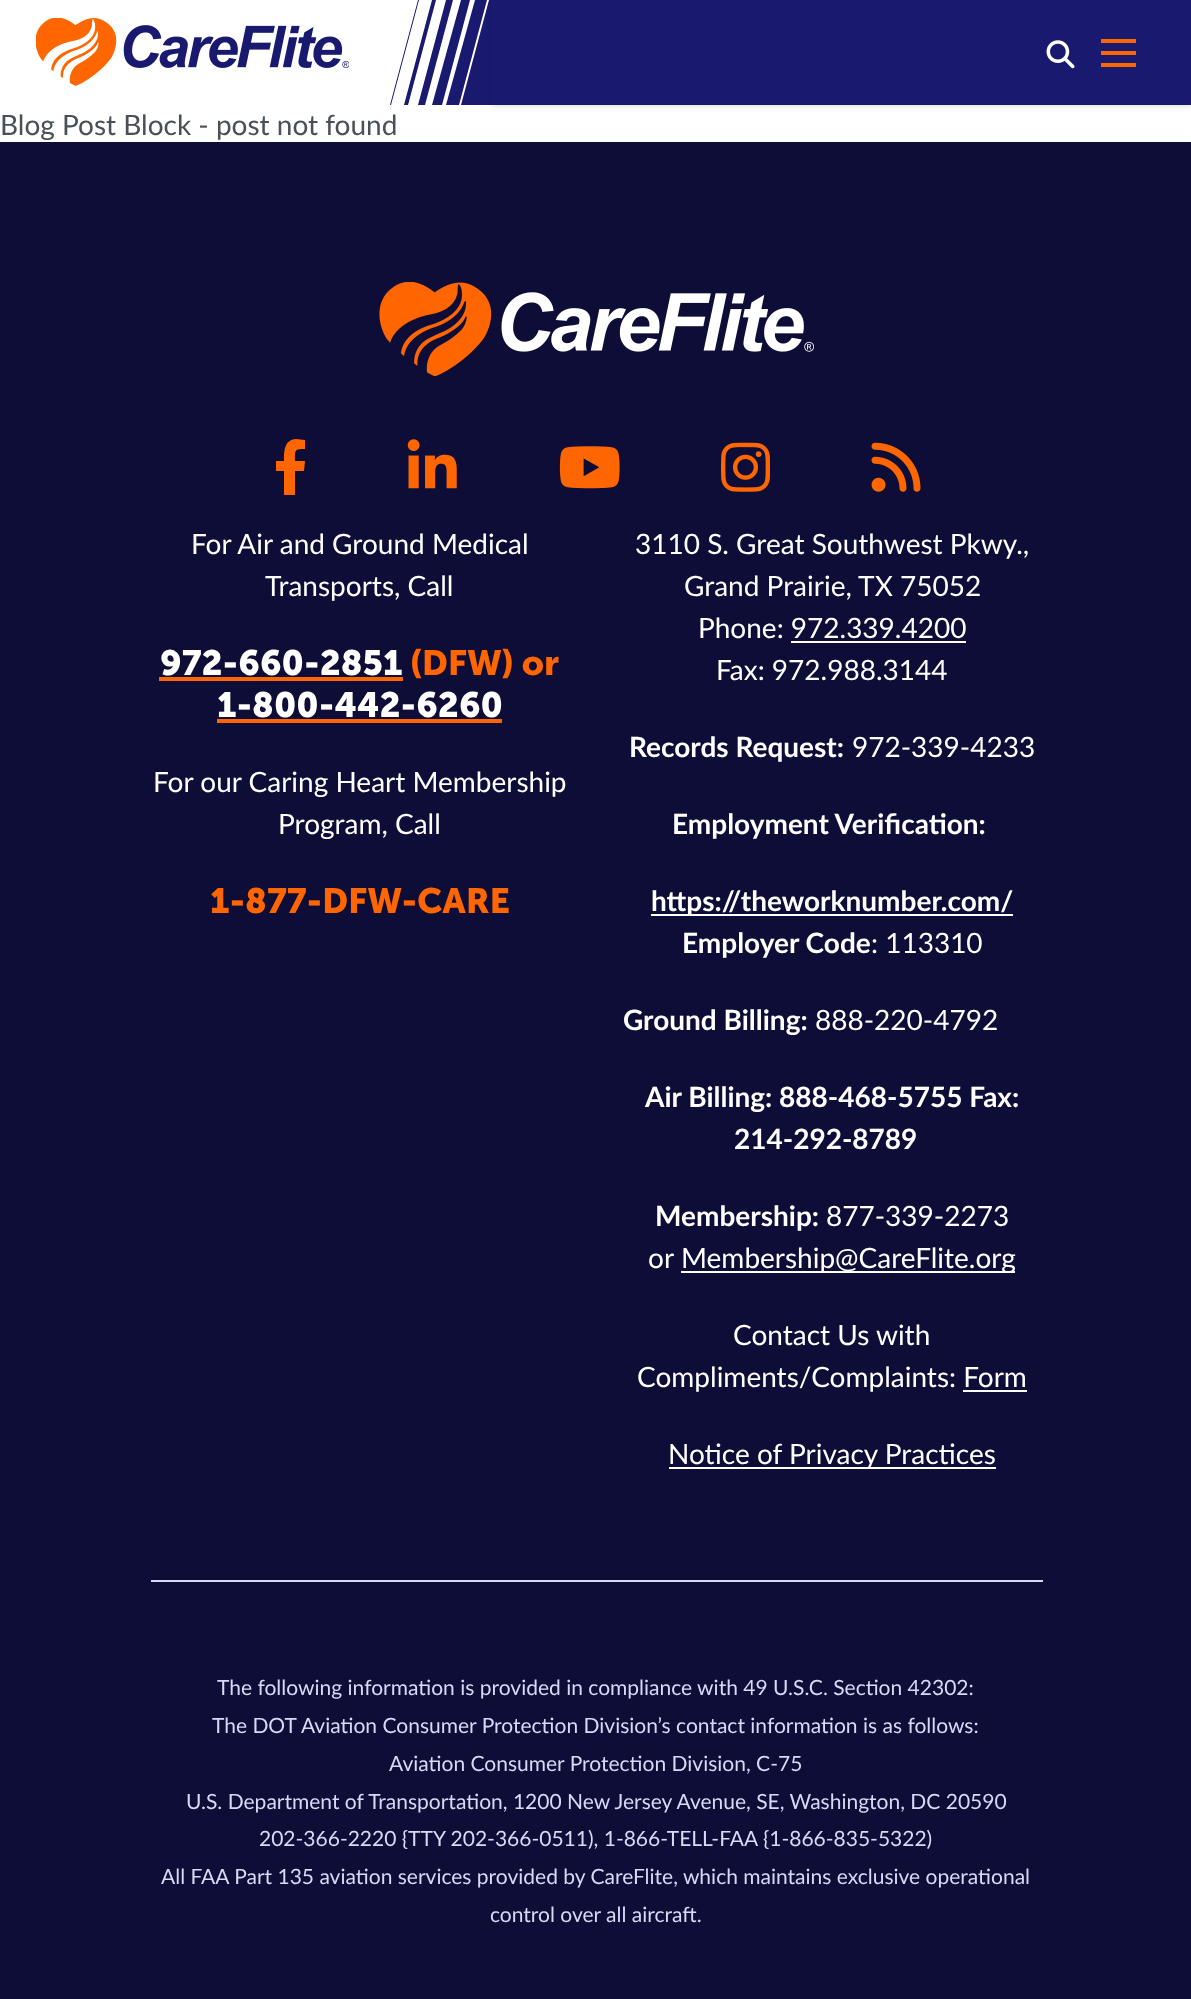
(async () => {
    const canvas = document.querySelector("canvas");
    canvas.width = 1191;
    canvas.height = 1999;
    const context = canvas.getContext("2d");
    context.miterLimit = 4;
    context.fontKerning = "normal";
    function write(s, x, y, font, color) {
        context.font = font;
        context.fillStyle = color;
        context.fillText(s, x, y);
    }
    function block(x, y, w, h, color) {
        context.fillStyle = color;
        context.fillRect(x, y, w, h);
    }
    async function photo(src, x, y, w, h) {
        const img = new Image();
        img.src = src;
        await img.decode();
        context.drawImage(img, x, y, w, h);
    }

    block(0, 0, 1191, 1999, "rgb(255, 255, 255)");
    await photo("media/1.png", 36, 18, 313, 68);
    block(390, 0, 102, 105, "rgb(25, 25, 112)");
    context.fillStyle = "rgb(255, 255, 255)";
    context.beginPath();
    context.moveTo(419, 0);
    context.lineTo(391, 105);
    context.lineTo(404, 105);
    context.lineTo(432, 0);
    context.closePath();
    context.fill();
    context.beginPath();
    context.moveTo(387, 0);
    context.lineTo(387, 105);
    context.lineTo(390, 105);
    context.lineTo(418, 0);
    context.closePath();
    context.fill();
    context.beginPath();
    context.moveTo(436, 0);
    context.lineTo(408, 105);
    context.lineTo(418, 105);
    context.lineTo(446, 0);
    context.closePath();
    context.fill();
    context.beginPath();
    context.moveTo(453, 0);
    context.lineTo(425, 105);
    context.lineTo(432, 105);
    context.lineTo(461, 0);
    context.closePath();
    context.fill();
    context.beginPath();
    context.moveTo(470, 0);
    context.lineTo(442, 105);
    context.lineTo(446, 105);
    context.lineTo(475, 0);
    context.closePath();
    context.fill();
    context.beginPath();
    context.moveTo(487, 0);
    context.lineTo(459, 105);
    context.lineTo(461, 105);
    context.lineTo(489, 0);
    context.closePath();
    context.fill();
    context.fillStyle = "rgba(0, 0, 0, 0.1)";
    context.filter = "blur(2.5px)";
    context.beginPath();
    context.rect(492, 2, 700, 105);
    context.fill();
    context.filter = "none";
    block(492, 0, 699, 105, "rgb(25, 25, 112)");
    await photo("media/2.png", 1046, 40, 29, 29);
    block(1101, 39, 35, 4, "rgb(255, 102, 0)");
    block(1101, 51, 35, 4, "rgb(255, 102, 0)");
    block(1101, 63, 35, 4, "rgb(255, 102, 0)");
    write("Blog Post Block - post not found", 0, 135, "28px Lato", "rgb(73, 80, 87)");
    block(0, 142, 1191, 1857, "rgb(13, 13, 56)");
    await photo("media/3.png", 379, 282, 435, 94);
    context.fillStyle = "rgb(255, 102, 0)";
    context.beginPath();
    context.moveTo(304, 471);
    context.lineTo(305, 461);
    context.lineTo(295, 461);
    context.bezierCurveTo(295, 450, 294, 449, 305, 449);
    context.lineTo(305, 440);
    context.lineTo(296, 439);
    context.bezierCurveTo(284, 440, 284, 451, 284, 461);
    context.lineTo(276, 461);
    context.lineTo(276, 471);
    context.lineTo(284, 471);
    context.lineTo(284, 495);
    context.lineTo(295, 495);
    context.lineTo(295, 471);
    context.closePath();
    context.fill();
    await photo("media/4.png", 407, 439, 50, 50);
    await photo("media/5.png", 559, 446, 61, 43);
    await photo("media/6.png", 721, 442, 49, 50);
    await photo("media/7.png", 871, 442, 50, 50);
    write("For Air and Ground Medical", 191, 554, "28px Lato", "rgb(255, 255, 255)");
    write("Transports, Call", 265, 596, "28px Lato", "rgb(255, 255, 255)");
    write("972-660-2851", 160, 675, "bold 35px 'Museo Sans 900'", "rgb(255, 255, 255)");
    block(159, 677, 244, 4, "rgb(255, 102, 0)");
    write("(DFW) or", 410, 675, "bold 35px 'Museo Sans 900'", "rgb(255, 102, 0)");
    write("1-800-442-6260", 217, 717, "bold 35px 'Museo Sans 900'", "rgb(255, 255, 255)");
    block(217, 719, 285, 4, "rgb(255, 102, 0)");
    write("For our Caring Heart Membership", 153, 792, "28px Lato", "rgb(255, 255, 255)");
    write("Program, Call", 278, 834, "28px Lato", "rgb(255, 255, 255)");
    write("1-877-DFW-CARE", 210, 913, "bold 35px 'Museo Sans 900'", "rgb(255, 102, 0)");
    write("3110 S. Great Southwest Pkwy.,", 635, 554, "28px Lato", "rgb(255, 255, 255)");
    write("Grand Prairie, TX 75052", 684, 596, "28px Lato", "rgb(255, 255, 255)");
    write("Phone: 972.339.4200", 698, 638, "28px Lato", "rgb(255, 255, 255)");
    block(791, 641, 175, 2, "rgb(255, 255, 255)");
    write("Fax: 972.988.3144", 716, 680, "28px Lato", "rgb(255, 255, 255)");
    write("Records Request:", 629, 757, "bold 28px Lato", "rgb(255, 255, 255)");
    write("972-339-4233", 852, 757, "28px Lato", "rgb(255, 255, 255)");
    write("Employment Verification:", 672, 834, "bold 28px Lato", "rgb(255, 255, 255)");
    block(651, 914, 362, 2, "rgb(255, 255, 255)");
    write("https://theworknumber.com/", 651, 911, "bold 28px Lato", "rgb(255, 255, 255)");
    write("Employer Code", 682, 953, "bold 28px Lato", "rgb(255, 255, 255)");
    write(": 113310", 871, 953, "28px Lato", "rgb(255, 255, 255)");
    write("Ground Billing:", 623, 1030, "bold 28px Lato", "rgb(255, 255, 255)");
    write("888-220-4792", 815, 1030, "28px Lato", "rgb(255, 255, 255)");
    write("Air Billing: 888-468-5755 Fax:", 645, 1107, "bold 28px Lato", "rgb(255, 255, 255)");
    write("214-292-8789", 734, 1149, "bold 28px Lato", "rgb(255, 255, 255)");
    write("Membership:", 655, 1226, "bold 28px Lato", "rgb(255, 255, 255)");
    write("877-339-2273", 826, 1226, "28px Lato", "rgb(255, 255, 255)");
    write("or", 648, 1268, "28px Lato", "rgb(255, 255, 255)");
    block(681, 1271, 334, 2, "rgb(255, 255, 255)");
    write("Membership@CareFlite.org", 681, 1268, "28px Lato", "rgb(255, 255, 255)");
    write("Contact Us with", 733, 1345, "28px Lato", "rgb(255, 255, 255)");
    write("Compliments/Complaints: Form", 637, 1387, "28px Lato", "rgb(255, 255, 255)");
    block(963, 1390, 64, 2, "rgb(255, 255, 255)");
    block(669, 1467, 327, 2, "rgb(255, 255, 255)");
    write("Notice of Privacy Practices", 668, 1464, "28px Lato", "rgb(255, 255, 255)");
    block(151, 1580, 892, 2, "rgb(215, 218, 244)");
    write("The following information is provided in compliance with 49 U.S.C. Section 42302:", 217, 1695, "21px Lato", "rgb(215, 218, 244)");
    write("The DOT Aviation Consumer Protection Division’s contact information is as follows:", 212, 1733, "21px Lato", "rgb(215, 218, 244)");
    write("Aviation Consumer Protection Division, C-75", 389, 1771, "21px Lato", "rgb(215, 218, 244)");
    write("U.S. Department of Transportation, 1200 New Jersey Avenue, SE, Washington, DC 20590", 186, 1809, "21px Lato", "rgb(215, 218, 244)");
    write("202-366-2220 {TTY 202-366-0511), 1-866-TELL-FAA {1-866-835-5322)", 259, 1846, "21px Lato", "rgb(215, 218, 244)");
    write("All FAA Part 135 aviation services provided by CareFlite, which maintains exclusive operational", 161, 1884, "21px Lato", "rgb(215, 218, 244)");
    write("control over all aircraft.", 490, 1922, "21px Lato", "rgb(215, 218, 244)");
})();
